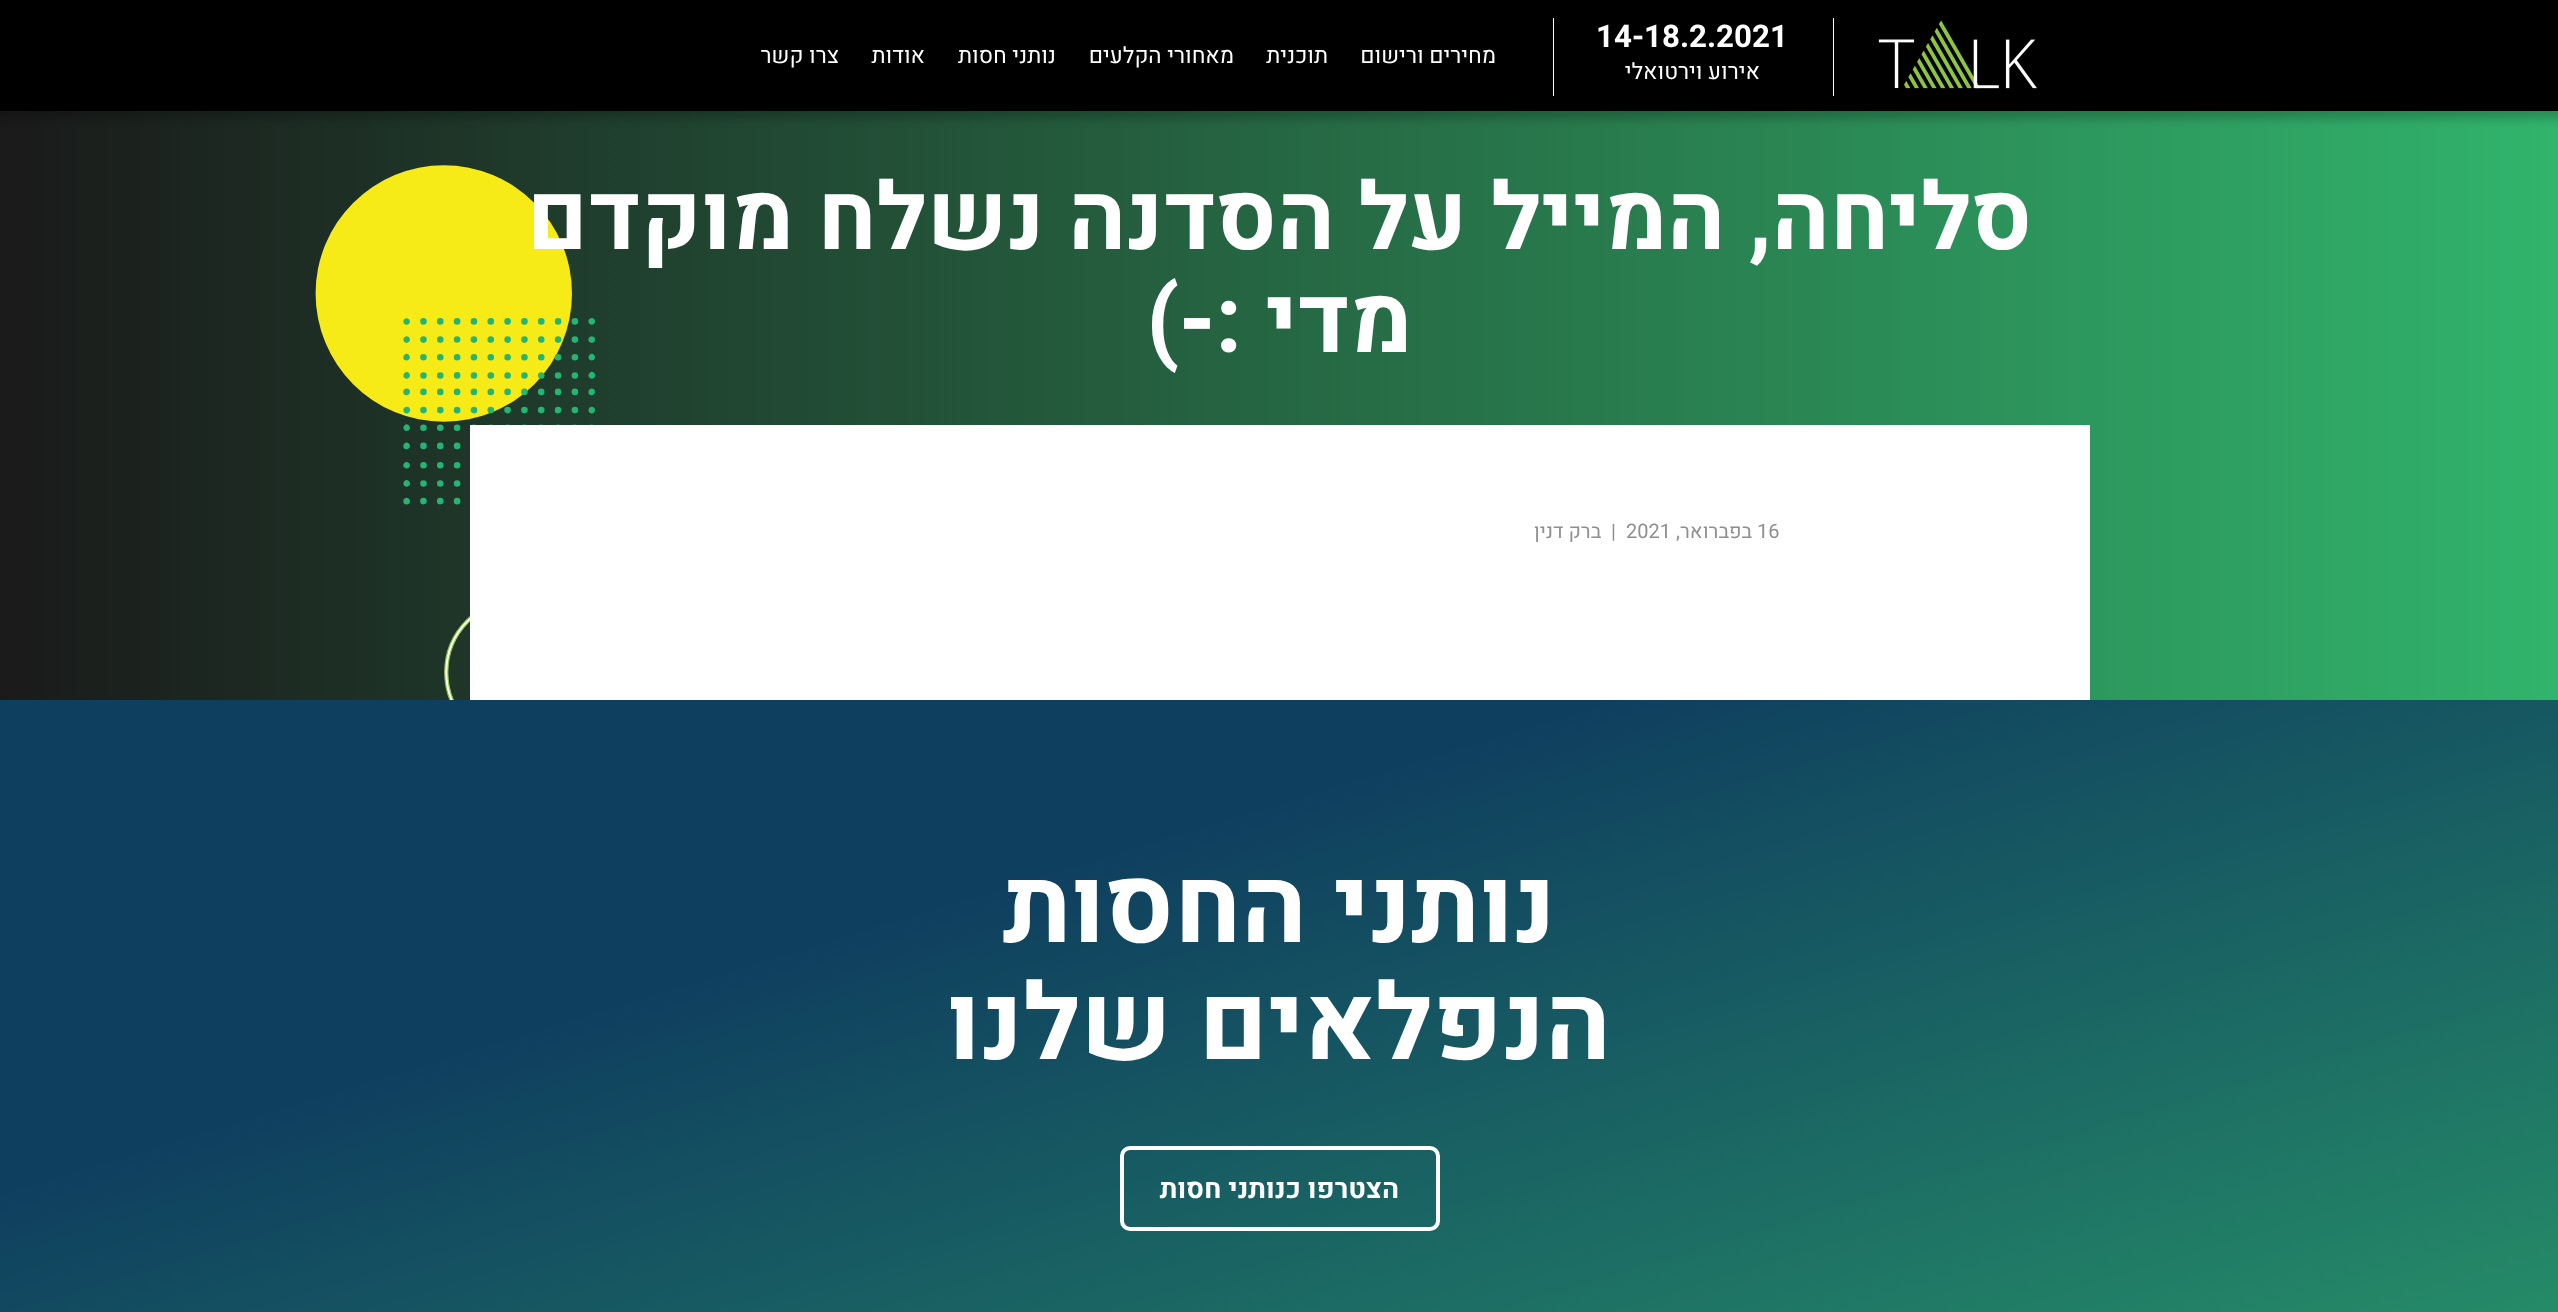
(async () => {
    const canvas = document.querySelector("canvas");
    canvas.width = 2558;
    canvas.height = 1312;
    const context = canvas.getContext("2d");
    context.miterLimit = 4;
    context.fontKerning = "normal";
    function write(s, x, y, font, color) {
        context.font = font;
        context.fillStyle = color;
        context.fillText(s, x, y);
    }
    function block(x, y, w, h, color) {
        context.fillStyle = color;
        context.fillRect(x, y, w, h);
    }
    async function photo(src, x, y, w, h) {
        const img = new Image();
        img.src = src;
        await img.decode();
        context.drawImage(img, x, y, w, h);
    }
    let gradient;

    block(0, 0, 2558, 1312, "rgb(255, 255, 255)");
    gradient = context.createLinearGradient(0, 403, 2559, 403);
    gradient.addColorStop(0, "rgb(26, 26, 26)");
    gradient.addColorStop(1, "rgb(49, 180, 108)");
    context.fillStyle = gradient;
    context.fillRect(0, 111, 2558, 589);
    context.fillStyle = "rgba(0, 0, 0, 0.2)";
    context.filter = "blur(4px)";
    context.beginPath();
    context.rect(-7, -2, 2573, 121);
    context.fill();
    context.filter = "none";
    block(0, 0, 2558, 111, "rgb(0, 0, 0)");
    await photo("media/1.png", 1878, 20, 159, 69);
    block(1833, 18, 1, 78, "rgb(255, 255, 255)");
    block(1553, 18, 1, 78, "rgb(255, 255, 255)");
    write("14-18.2.2021", 1596, 47, "bold 31.25px Heebo", "rgb(255, 255, 255)");
    context.direction = "rtl";
    write("אירוע וירטואלי", 1760, 79, "22.5px Heebo", "rgb(255, 255, 255)");
    write("מחירים ורישום", 1496, 63, "22.5px Heebo", "rgb(255, 255, 255)");
    write("תוכנית", 1328, 63, "22.5px Heebo", "rgb(255, 255, 255)");
    write("מאחורי הקלעים", 1234, 63, "22.5px Heebo", "rgb(255, 255, 255)");
    write("נותני חסות", 1056, 63, "22.5px Heebo", "rgb(255, 255, 255)");
    write("אודות", 925, 63, "22.5px Heebo", "rgb(255, 255, 255)");
    write("צרו קשר", 839, 63, "22.5px Heebo", "rgb(255, 255, 255)");
    await photo("media/2.png", 315, 165, 281, 535);
    write("סליחה, המייל על הסדנה נשלח מוקדם", 2032, 249, "bold 93.75px Heebo", "rgb(255, 255, 255)");
    write("מדי :-)", 1412, 352, "bold 93.75px Heebo", "rgb(255, 255, 255)");
    block(470, 425, 1620, 275, "rgb(255, 255, 255)");
    context.direction = "ltr";
    write("16", 1757, 538, "20px Heebo", "rgb(143, 143, 143)");
    context.direction = "rtl";
    write("בפברואר,", 1752, 538, "20px Heebo", "rgb(143, 143, 143)");
    context.direction = "ltr";
    write("2021", 1626, 538, "20px Heebo", "rgb(143, 143, 143)");
    context.direction = "rtl";
    write("|  ברק דנין", 1616, 538, "20px Heebo", "rgb(143, 143, 143)");
    gradient = context.createLinearGradient(1016, 389, 1543, 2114);
    gradient.addColorStop(0.26, "rgb(15, 63, 95)");
    gradient.addColorStop(1, "rgb(49, 180, 108)");
    context.fillStyle = gradient;
    context.fillRect(0, 700, 2558, 612);
    write("נותני החסות", 1556, 942, "bold 106.25px Heebo", "rgb(255, 255, 255)");
    write("הנפלאים שלנו", 1611, 1059, "bold 106.25px Heebo", "rgb(255, 255, 255)");
    context.beginPath();
    context.roundRect(1122, 1148, 316, 81, 8);
    context.strokeStyle = "rgb(255, 255, 255)";
    context.lineWidth = 4;
    context.stroke();
    write("הצטרפו כנותני חסות", 1399, 1198, "bold 27.5px Heebo", "rgb(255, 255, 255)");
})();
